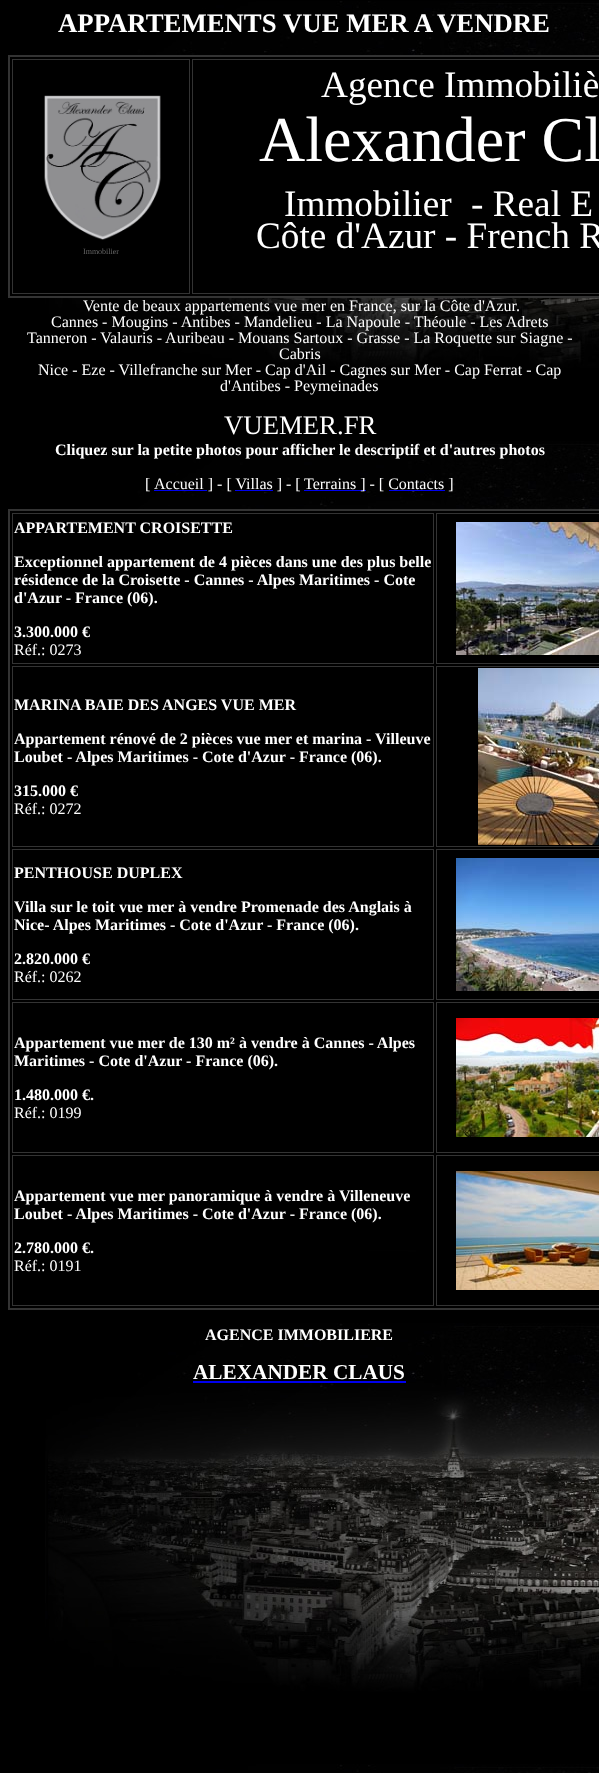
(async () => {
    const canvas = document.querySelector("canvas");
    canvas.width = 599;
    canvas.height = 1773;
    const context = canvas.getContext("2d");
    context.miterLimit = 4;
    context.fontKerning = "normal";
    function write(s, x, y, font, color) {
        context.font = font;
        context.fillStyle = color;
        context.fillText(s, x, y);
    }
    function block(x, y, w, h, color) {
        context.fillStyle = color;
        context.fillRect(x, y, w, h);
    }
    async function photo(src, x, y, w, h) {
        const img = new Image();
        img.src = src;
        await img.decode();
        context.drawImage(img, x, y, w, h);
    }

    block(0, 0, 599, 1773, "rgb(0, 0, 0)");
    await photo("media/1.png", 45, 1, 554, 1772);
    write("APPARTEMENTS", 58, 32, "bold 26.75px Liberation Serif", "rgb(255, 255, 255)");
    write("VUE MER A", 283, 32, "bold 26.75px Liberation Serif", "rgb(255, 255, 255)");
    write("VENDRE", 437, 32, "bold 26.75px Liberation Serif", "rgb(255, 255, 255)");
    block(45, 57, 554, 239, "rgb(0, 0, 0)");
    context.strokeStyle = "rgb(51, 51, 51)";
    context.lineWidth = 2;
    context.strokeRect(9, 56, 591, 241);
    context.lineWidth = 1;
    context.strokeRect(192.5, 59.5, 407, 234);
    write("Agence Immobiliè", 321, 97, "37.25px Liberation Serif", "rgb(255, 255, 255)");
    write("Alexander Cl", 259, 161, "64px Liberation Serif", "rgb(255, 255, 255)");
    write("Immobilier", 284, 216, "37.25px Liberation Serif", "rgb(255, 255, 255)");
    write("- Real E", 471, 216, "37.25px Liberation Serif", "rgb(255, 255, 255)");
    write("Côte d'Azur - French R", 256, 248, "37.25px Liberation Serif", "rgb(255, 255, 255)");
    context.strokeRect(12.5, 59.5, 177, 234);
    await photo("media/2.png", 44, 95, 117, 145);
    write("Immobilier", 83, 254, "8px Liberation Serif", "rgb(102, 102, 102)");
    write("Vente de beaux appartements vue mer en France, sur la Côte d'Azur.", 83, 311, "16px Liberation Serif", "rgb(255, 255, 255)");
    write("Cannes - Mougins - Antibes - Mandelieu - La Napoule - Théoule - Les Adrets", 51, 327, "16px Liberation Serif", "rgb(255, 255, 255)");
    write("Tanneron - Valauris - Auribeau - Mouans Sartoux - Grasse - La Roquette sur Siagne -", 27, 343, "16px Liberation Serif", "rgb(255, 255, 255)");
    write("Cabris", 279, 359, "16px Liberation Serif", "rgb(255, 255, 255)");
    write("Nice - Eze - Villefranche sur Mer - Cap d'Ail - Cagnes sur Mer - Cap Ferrat - Cap", 38, 375, "16px Liberation Serif", "rgb(255, 255, 255)");
    write("d'Antibes - Peymeinades", 220, 391, "16px Liberation Serif", "rgb(255, 255, 255)");
    write("VUEMER.FR", 224, 434, "26.75px Liberation Serif", "rgb(255, 255, 255)");
    write("Cliquez sur la petite photos pour afficher le descriptif et d'autres photos", 55, 455, "bold 16px Liberation Serif", "rgb(255, 255, 255)");
    write("[", 145, 489, "16px Liberation Serif", "rgb(255, 255, 255)");
    block(154, 490, 53, 1, "rgb(0, 0, 238)");
    write("Accueil ] - [ Villas ] - [", 154, 489, "16px Liberation Serif", "rgb(255, 255, 255)");
    block(304, 490, 62, 1, "rgb(0, 0, 238)");
    write("Terrains ] - [ Contacts ]", 304, 489, "16px Liberation Serif", "rgb(255, 255, 255)");
    block(235, 490, 38, 1, "rgb(0, 0, 238)");
    block(389, 490, 56, 1, "rgb(0, 0, 238)");
    block(45, 511, 554, 739, "rgb(0, 0, 0)");
    context.lineWidth = 2;
    context.strokeRect(9, 510, 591, 799);
    context.lineWidth = 1;
    context.strokeRect(12.5, 513.5, 421, 150);
    write("APPARTEMENT CROISETTE", 14, 533, "bold 16px Liberation Serif", "rgb(255, 255, 255)");
    write("Exceptionnel appartement de 4 pièces dans une des plus belle", 14, 567, "bold 16px Liberation Serif", "rgb(255, 255, 255)");
    write("résidence de la Croisette - Cannes - Alpes Maritimes - Cote", 14, 585, "bold 16px Liberation Serif", "rgb(255, 255, 255)");
    write("d'Azur - France (06).", 14, 603, "bold 16px Liberation Serif", "rgb(255, 255, 255)");
    write("3.300.000 €", 14, 637, "bold 16px Liberation Serif", "rgb(255, 255, 255)");
    write("Réf.: 0273", 14, 655, "16px Liberation Serif", "rgb(255, 255, 255)");
    context.strokeRect(436.5, 513.5, 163, 150);
    await photo("media/3.png", 456, 522, 143, 133);
    context.strokeRect(12.5, 666.5, 421, 180);
    write("MARINA BAIE DES ANGES VUE MER", 14, 710, "bold 16px Liberation Serif", "rgb(255, 255, 255)");
    write("Appartement rénové de 2 pièces vue mer et marina - Villeuve", 14, 744, "bold 16px Liberation Serif", "rgb(255, 255, 255)");
    write("Loubet - Alpes Maritimes - Cote d'Azur - France (06).", 14, 762, "bold 16px Liberation Serif", "rgb(255, 255, 255)");
    write("315.000 €", 14, 796, "bold 16px Liberation Serif", "rgb(255, 255, 255)");
    write("Réf.: 0272", 14, 814, "16px Liberation Serif", "rgb(255, 255, 255)");
    context.strokeRect(436.5, 666.5, 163, 180);
    await photo("media/4.png", 478, 668, 121, 177);
    context.strokeRect(12.5, 849.5, 421, 150);
    write("PENTHOUSE DUPLEX", 14, 878, "bold 16px Liberation Serif", "rgb(255, 255, 255)");
    write("Villa sur le toit vue mer à vendre Promenade des Anglais à", 14, 912, "bold 16px Liberation Serif", "rgb(255, 255, 255)");
    write("Nice- Alpes Maritimes - Cote d'Azur - France (06).", 14, 930, "bold 16px Liberation Serif", "rgb(255, 255, 255)");
    write("2.820.000 €", 14, 964, "bold 16px Liberation Serif", "rgb(255, 255, 255)");
    write("Réf.: 0262", 14, 982, "16px Liberation Serif", "rgb(255, 255, 255)");
    context.strokeRect(436.5, 849.5, 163, 150);
    await photo("media/5.png", 456, 858, 143, 133);
    context.strokeRect(12.5, 1002.5, 421, 150);
    write("Appartement vue mer de 130 m² à vendre à Cannes - Alpes", 14, 1048, "bold 16px Liberation Serif", "rgb(255, 255, 255)");
    write("Maritimes - Cote d'Azur - France (06).", 14, 1066, "bold 16px Liberation Serif", "rgb(255, 255, 255)");
    write("1.480.000 €.", 14, 1100, "bold 16px Liberation Serif", "rgb(255, 255, 255)");
    write("Réf.: 0199", 14, 1118, "16px Liberation Serif", "rgb(255, 255, 255)");
    context.strokeRect(436.5, 1002.5, 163, 150);
    await photo("media/6.png", 456, 1018, 143, 119);
    context.strokeRect(12.5, 1155.5, 421, 150);
    write("Appartement vue mer panoramique à vendre à Villeneuve", 14, 1201, "bold 16px Liberation Serif", "rgb(255, 255, 255)");
    write("Loubet - Alpes Maritimes - Cote d'Azur - France (06).", 14, 1219, "bold 16px Liberation Serif", "rgb(255, 255, 255)");
    write("2.780.000 €.", 14, 1253, "bold 16px Liberation Serif", "rgb(255, 255, 255)");
    write("Réf.: 0191", 14, 1271, "16px Liberation Serif", "rgb(255, 255, 255)");
    context.strokeRect(436.5, 1155.5, 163, 150);
    await photo("media/7.png", 456, 1171, 143, 119);
    write("AGENCE IMMOBILIERE", 205, 1340, "bold 16px Liberation Serif", "rgb(255, 255, 255)");
    write("ALEXANDER CLAUS", 193, 1379, "bold 21.25px Liberation Serif", "rgb(255, 255, 255)");
    block(193, 1381, 213, 2, "rgb(0, 0, 238)");
})();
